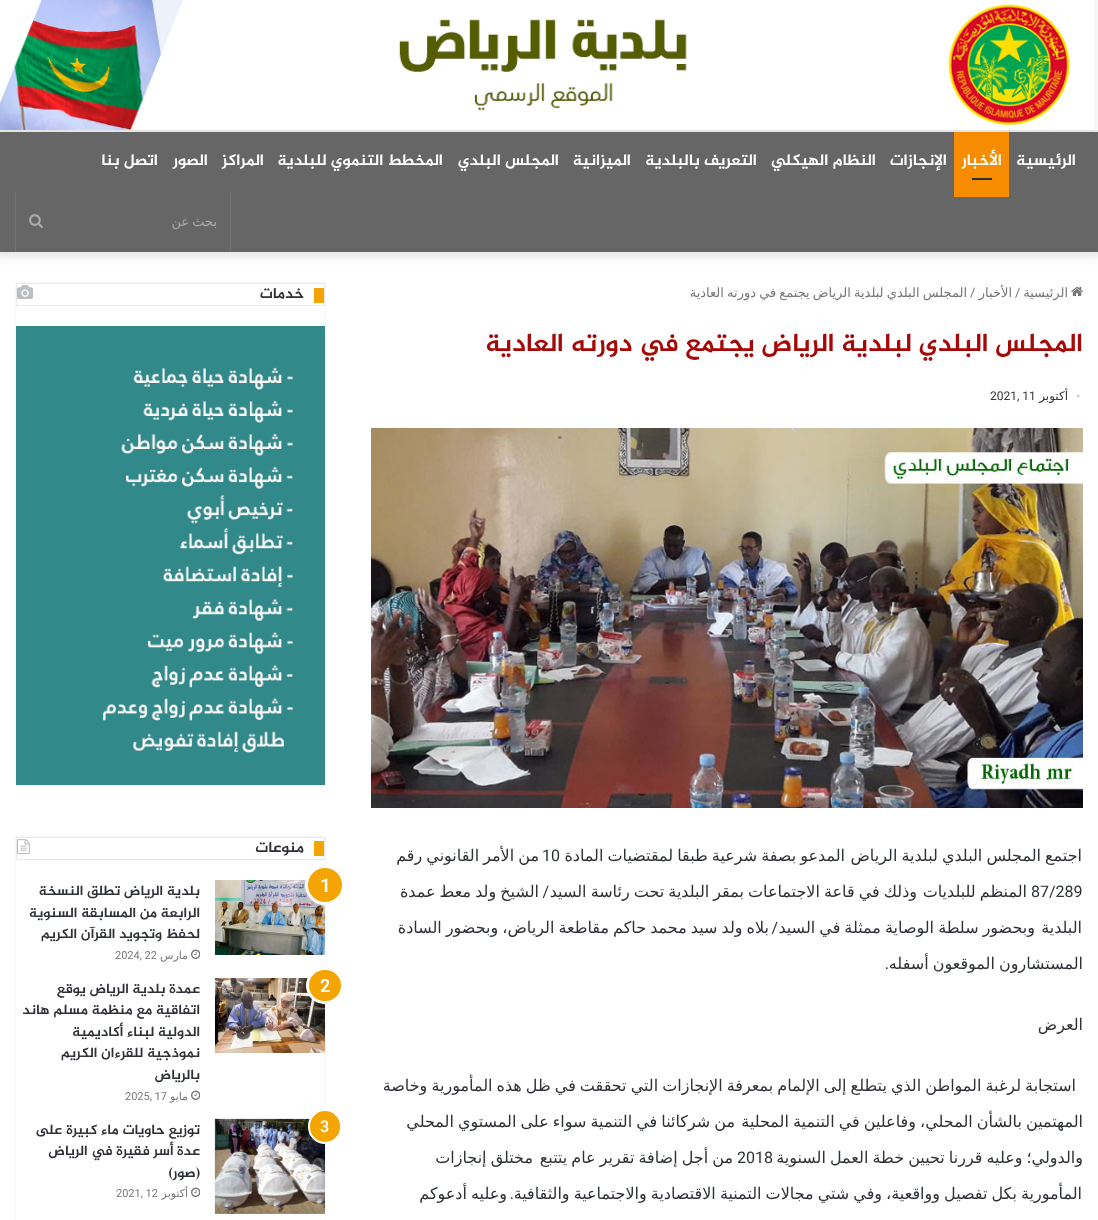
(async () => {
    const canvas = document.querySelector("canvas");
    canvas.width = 1098;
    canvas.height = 1220;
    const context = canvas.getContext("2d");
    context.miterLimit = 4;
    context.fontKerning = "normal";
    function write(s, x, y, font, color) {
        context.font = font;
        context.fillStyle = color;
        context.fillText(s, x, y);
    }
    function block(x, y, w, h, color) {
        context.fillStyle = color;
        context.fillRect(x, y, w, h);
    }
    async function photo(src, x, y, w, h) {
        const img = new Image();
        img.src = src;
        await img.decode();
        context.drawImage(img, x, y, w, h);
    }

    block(0, 0, 1098, 1220, "rgb(255, 255, 255)");
    context.fillStyle = "rgba(0, 0, 0, 0.1)";
    context.filter = "blur(5px)";
    context.beginPath();
    context.rect(-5, -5, 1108, 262);
    context.fill();
    context.filter = "none";
    await photo("media/1.png", 0, 0, 1098, 130);
    block(0, 132, 1098, 120, "rgb(102, 102, 102)");
    context.direction = "rtl";
    write("الرئيسية", 1076, 165, "bold 16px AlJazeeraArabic", "rgb(255, 255, 255)");
    block(954, 132, 55, 65, "rgb(248, 140, 0)");
    write("الأخبار", 1002, 165, "bold 16px AlJazeeraArabic", "rgb(255, 255, 255)");
    block(972, 178, 20, 2, "rgb(44, 47, 52)");
    write("الإنجازات", 947, 165, "bold 16px AlJazeeraArabic", "rgb(255, 255, 255)");
    write("النظام الهيكلي", 876, 165, "bold 16px AlJazeeraArabic", "rgb(255, 255, 255)");
    write("التعريف بالبلدية", 757, 165, "bold 16px AlJazeeraArabic", "rgb(255, 255, 255)");
    write("الميزانية", 631, 165, "bold 16px AlJazeeraArabic", "rgb(255, 255, 255)");
    write("المجلس البلدي", 559, 165, "bold 16px AlJazeeraArabic", "rgb(255, 255, 255)");
    write("المخطط التنموي للبلدية", 443, 165, "bold 16px AlJazeeraArabic", "rgb(255, 255, 255)");
    write("المراكز", 264, 165, "bold 16px AlJazeeraArabic", "rgb(255, 255, 255)");
    write("الصور", 208, 165, "bold 16px AlJazeeraArabic", "rgb(255, 255, 255)");
    write("اتصل بنا", 158, 165, "bold 16px AlJazeeraArabic", "rgb(255, 255, 255)");
    block(230, 192, 1, 60, "rgb(113, 113, 113)");
    block(15, 192, 1, 60, "rgb(113, 113, 113)");
    context.wordSpacing = "-1px";
    write("بحث عن", 217, 226, "13px DejaVu Sans", "rgb(170, 170, 170)");
    await photo("media/2.png", 29, 214, 14, 14);
    context.wordSpacing = "0px";
    write("الأخبار", 1012, 297, "13px DejaVu Sans", "rgb(119, 119, 119)");
    context.direction = "ltr";
    write("/", 970, 297, "13px Roboto", "rgb(119, 119, 119)");
    context.wordSpacing = "-1px";
    context.direction = "rtl";
    write("المجلس البلدي لبلدية الرياض يجتمع في دورته العادية", 967, 297, "13px DejaVu Sans", "rgb(119, 119, 119)");
    await photo("media/3.png", 1071, 286, 12, 11);
    context.wordSpacing = "0px";
    write("الرئيسية", 1068, 297, "13px DejaVu Sans", "rgb(119, 119, 119)");
    context.direction = "ltr";
    write("/", 1015, 297, "13px Roboto", "rgb(119, 119, 119)");
    context.direction = "rtl";
    write("المجلس البلدي لبلدية الرياض يجتمع في دورته العادية", 1083, 351, "bold 26px AlJazeeraArabic", "rgb(166, 7, 7)");
    context.direction = "ltr";
    write("•", 1076, 400, "12px Liberation Serif", "rgb(205, 205, 205)");
    context.direction = "rtl";
    write("أكتوبر", 1068, 400, "12px DejaVu Sans", "rgb(53, 53, 53)");
    context.direction = "ltr";
    write("2021, 11", 990, 400, "12px Roboto", "rgb(53, 53, 53)");
    await photo("media/4.png", 371, 428, 712, 380);
    context.wordSpacing = "-1px";
    context.direction = "rtl";
    write("اجتمع المجلس البلدي لبلدية الرياض", 1082, 861, "16px DejaVu Sans", "rgb(46, 49, 54)");
    write("المدعو بصفة شرعية طبقا لمقتضيات المادة", 845, 861, "16px DejaVu Sans", "rgb(46, 49, 54)");
    context.wordSpacing = "0px";
    context.direction = "ltr";
    write("10", 542, 861, "16px Roboto", "rgb(46, 49, 54)");
    context.wordSpacing = "-1px";
    context.direction = "rtl";
    write("من الأمر القانوني رقم", 539, 861, "16px DejaVu Sans", "rgb(46, 49, 54)");
    context.wordSpacing = "0px";
    context.direction = "ltr";
    write("87/289", 1031, 897, "16px Roboto", "rgb(46, 49, 54)");
    context.wordSpacing = "-1px";
    context.direction = "rtl";
    write("المنظم للبلديات", 1027, 897, "16px DejaVu Sans", "rgb(46, 49, 54)");
    write("وذلك في قاعة الاجتماعات بمقر البلدية تحت رئاسة السيد", 917, 897, "16px DejaVu Sans", "rgb(46, 49, 54)");
    context.wordSpacing = "0px";
    write("/", 549, 897, "16px Roboto", "rgb(46, 49, 54)");
    context.wordSpacing = "-1px";
    write("الشيخ ولد معط عمدة", 539, 897, "16px DejaVu Sans", "rgb(46, 49, 54)");
    context.wordSpacing = "0px";
    write("البلدية", 1082, 933, "16px DejaVu Sans", "rgb(46, 49, 54)");
    context.wordSpacing = "-1px";
    write("وبحضور سلطة الوصاية ممثلة في السيد", 1035, 933, "16px DejaVu Sans", "rgb(46, 49, 54)");
    write("بلاه ولد سيد محمد حاكم مقاطعة الرياض، وبحضور السادة", 769, 933, "16px DejaVu Sans", "rgb(46, 49, 54)");
    context.wordSpacing = "0px";
    write("/", 778, 933, "16px Roboto", "rgb(46, 49, 54)");
    context.wordSpacing = "-1px";
    write("المستشارون الموقعون أسفله", 1083, 969, "16px DejaVu Sans", "rgb(46, 49, 54)");
    context.wordSpacing = "0px";
    write(".", 889, 969, "16px Roboto", "rgb(46, 49, 54)");
    write("العرض", 1083, 1030, "16px DejaVu Sans", "rgb(46, 49, 54)");
    context.wordSpacing = "-1px";
    write("استجابة لرغبة المواطن الذي يتطلع إلى الإلمام بمعرفة الإنجازات التي تحققت في ظل هذه المأمورية وخاصة", 1076, 1091, "16px DejaVu Sans", "rgb(46, 49, 54)");
    write("المهتمين بالشأن المحلي، وفاعلين في التنمية المحلية", 1083, 1127, "16px DejaVu Sans", "rgb(46, 49, 54)");
    write("من شركائنا في التنمية سواء على المستوي المحلي", 735, 1127, "16px DejaVu Sans", "rgb(46, 49, 54)");
    write("والدولي؛ وعليه قررنا تحيين خطة العمل السنوية", 1083, 1163, "16px DejaVu Sans", "rgb(46, 49, 54)");
    context.wordSpacing = "0px";
    context.direction = "ltr";
    write("2018", 737, 1163, "16px Roboto", "rgb(46, 49, 54)");
    context.wordSpacing = "-1px";
    context.direction = "rtl";
    write("من أجل إضافة تقرير عام يتتبع", 733, 1163, "16px DejaVu Sans", "rgb(46, 49, 54)");
    write("مختلق إنجازات", 533, 1163, "16px DejaVu Sans", "rgb(46, 49, 54)");
    write("المأمورية بكل تفصيل وواقعية، وفي شتي مجالات التمنية الاقتصادية والاجتماعية والثقافية", 1082, 1199, "16px DejaVu Sans", "rgb(46, 49, 54)");
    context.wordSpacing = "0px";
    write(".", 514, 1199, "16px Roboto", "rgb(46, 49, 54)");
    context.wordSpacing = "-1px";
    write("وعليه أدعوكم", 507, 1199, "16px DejaVu Sans", "rgb(46, 49, 54)");
    context.beginPath();
    context.roundRect(15.5, 282.5, 310, 503, 1.5);
    context.strokeStyle = "rgb(247, 247, 247)";
    context.stroke();
    context.strokeStyle = "rgb(233, 233, 233)";
    context.strokeRect(16.5, 283.5, 308, 22);
    block(314, 288, 10, 15, "rgb(244, 164, 3)");
    context.wordSpacing = "0px";
    write("خدمات", 304, 298, "bold 15px AlJazeeraArabic", "rgb(46, 49, 54)");
    await photo("media/5.png", 17, 285, 17, 14);
    await photo("media/6.png", 16, 326, 309, 459);
    context.beginPath();
    context.roundRect(15.5, 836.5, 310, 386, 1.5);
    context.strokeStyle = "rgb(247, 247, 247)";
    context.stroke();
    context.strokeStyle = "rgb(233, 233, 233)";
    context.strokeRect(16.5, 837.5, 308, 22);
    block(314, 841, 10, 15, "rgb(244, 164, 3)");
    write("منوعات", 304, 852, "bold 15px AlJazeeraArabic", "rgb(46, 49, 54)");
    await photo("media/7.png", 17, 839, 13, 16);
    await photo("media/8.png", 215, 880, 110, 75);
    context.fillStyle = "rgb(244, 164, 3)";
    context.beginPath();
    context.arc(325, 885, 18.5, 0, Math.PI * 2);
    context.fill();
    context.strokeStyle = "rgb(255, 255, 255)";
    context.lineWidth = 3;
    context.stroke();
    context.direction = "ltr";
    write("1", 320, 892, "600 19px Roboto", "rgb(255, 255, 255)");
    context.direction = "rtl";
    write("بلدية الرياض تطلق النسخة", 200, 895, "bold 14px AlJazeeraArabic", "rgb(46, 49, 54)");
    write("الرابعة من المسابقة السنوية", 200, 917, "bold 14px AlJazeeraArabic", "rgb(46, 49, 54)");
    write("لحفظ وتجويد القرآن الكريم", 200, 938, "bold 14px AlJazeeraArabic", "rgb(46, 49, 54)");
    await photo("media/9.png", 191, 949, 9, 10);
    write("مارس", 188, 959, "11px DejaVu Sans", "rgb(119, 119, 119)");
    context.direction = "ltr";
    write("2024, 22", 115, 959, "11px Roboto", "rgb(119, 119, 119)");
    await photo("media/10.png", 215, 978, 110, 75);
    context.fillStyle = "rgb(244, 164, 3)";
    context.beginPath();
    context.roundRect(307.5, 968.5, 35, 34, 17);
    context.fill();
    context.stroke();
    write("2", 320, 992, "600 18px Roboto", "rgb(255, 255, 255)");
    context.direction = "rtl";
    write("عمدة بلدية الرياض يوقع", 200, 993, "bold 14px AlJazeeraArabic", "rgb(46, 49, 54)");
    write("اتفاقية مع منظمة مسلم هاند", 200, 1014, "bold 14px AlJazeeraArabic", "rgb(46, 49, 54)");
    write("الدولية لبناء أكاديمية", 200, 1036, "bold 14px AlJazeeraArabic", "rgb(46, 49, 54)");
    write("نموذجية للقرءان الكريم", 200, 1057, "bold 14px AlJazeeraArabic", "rgb(46, 49, 54)");
    write("بالرياض", 200, 1079, "bold 14px AlJazeeraArabic", "rgb(46, 49, 54)");
    await photo("media/9.png", 191, 1090, 9, 10);
    write("مايو", 188, 1100, "11px DejaVu Sans", "rgb(119, 119, 119)");
    context.direction = "ltr";
    write("2025, 17", 125, 1100, "11px Roboto", "rgb(119, 119, 119)");
    await photo("media/11.png", 214, 1118, 111, 96);
    context.fillStyle = "rgb(244, 164, 3)";
    context.beginPath();
    context.roundRect(309, 1110, 32, 33, 16);
    context.fill();
    context.lineWidth = 2;
    context.stroke();
    write("3", 320, 1132, "600 16px Roboto", "rgb(255, 255, 255)");
    context.direction = "rtl";
    write("توزيع حاويات ماء كبيرة على", 200, 1134, "bold 14px AlJazeeraArabic", "rgb(46, 49, 54)");
    write("عدة أسر فقيرة في الرياض", 200, 1155, "bold 14px AlJazeeraArabic", "rgb(46, 49, 54)");
    write("(صور)", 200, 1177, "bold 14px AlJazeeraArabic", "rgb(46, 49, 54)");
    await photo("media/9.png", 191, 1187, 9, 10);
    write("أكتوبر", 188, 1197, "11px DejaVu Sans", "rgb(119, 119, 119)");
    context.direction = "ltr";
    write("2021, 12", 116, 1197, "11px Roboto", "rgb(119, 119, 119)");
    context.beginPath();
    context.roundRect(309, 1220, 31, 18, 15.5);
    context.stroke();
})();
